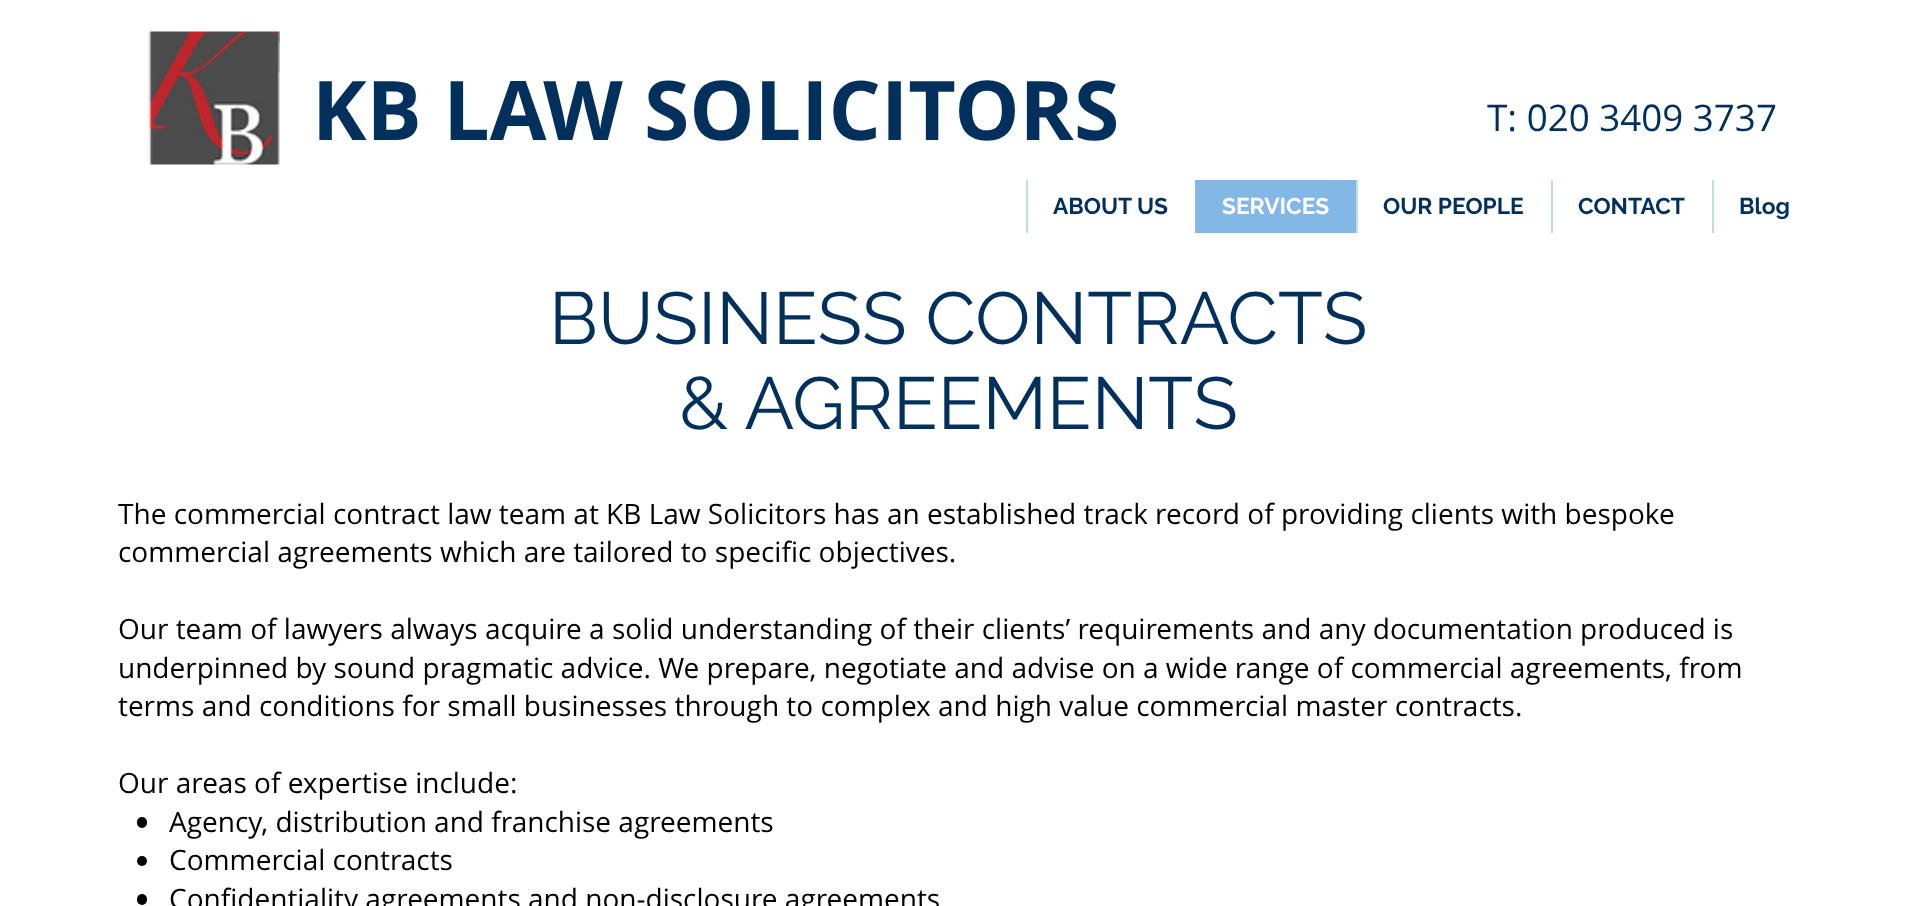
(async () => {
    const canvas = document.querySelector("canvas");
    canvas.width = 1916;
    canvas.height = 906;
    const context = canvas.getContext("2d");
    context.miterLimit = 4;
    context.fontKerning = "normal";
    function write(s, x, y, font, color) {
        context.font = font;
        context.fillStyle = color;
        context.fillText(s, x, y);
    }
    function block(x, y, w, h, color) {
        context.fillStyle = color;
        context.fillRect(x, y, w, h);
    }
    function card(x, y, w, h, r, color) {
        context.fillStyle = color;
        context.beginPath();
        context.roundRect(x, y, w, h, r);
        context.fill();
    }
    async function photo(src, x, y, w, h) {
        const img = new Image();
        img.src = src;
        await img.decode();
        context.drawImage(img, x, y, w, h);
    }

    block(0, 0, 1916, 906, "rgb(255, 255, 255)");
    await photo("media/1.png", 148, 31, 132, 134);
    write("KB LAW SOLICITORS", 312, 140, "bold 82.25px Open Sans", "rgb(0, 48, 91)");
    write("T: 020 3409 3737", 1487, 131, "36.75px Open Sans", "rgb(0, 48, 91)");
    block(1026, 180, 2, 53, "rgb(192, 218, 242)");
    write("ABOUT US", 1053, 214, "bold 22.75px Raleway", "rgb(0, 48, 91)");
    block(1195, 180, 161, 53, "rgb(131, 183, 230)");
    write("SERVICES", 1222, 214, "bold 22.75px Raleway", "rgb(255, 255, 255)");
    block(1356, 180, 2, 53, "rgb(192, 218, 242)");
    write("OUR PEOPLE", 1383, 214, "bold 22.75px Raleway", "rgb(0, 48, 91)");
    block(1551, 180, 2, 53, "rgb(192, 218, 242)");
    write("CONTACT", 1578, 214, "bold 22.75px Raleway", "rgb(0, 48, 91)");
    block(1712, 180, 2, 53, "rgb(192, 218, 242)");
    write("Blog", 1739, 214, "bold 22.75px Raleway", "rgb(0, 48, 91)");
    write("BUSINESS CONTRACTS", 549, 344, "73.5px Raleway", "rgb(0, 48, 91)");
    write("& AGREEMENTS", 679, 429, "73.5px Raleway", "rgb(0, 48, 91)");
    write("The commercial contract law team at KB Law Solicitors has an established track record of providing clients with bespoke", 118, 524, "28px Open Sans", "rgb(0, 0, 0)");
    write("commercial agreements which are tailored to specific objectives.", 118, 562, "28px Open Sans", "rgb(0, 0, 0)");
    write("Our team of lawyers always acquire a solid understanding of their clients’ requirements and any documentation produced is", 118, 639, "28px Open Sans", "rgb(0, 0, 0)");
    write("underpinned by sound pragmatic advice. We prepare, negotiate and advise on a wide range of commercial agreements, from", 118, 678, "28px Open Sans", "rgb(0, 0, 0)");
    write("terms and conditions for small businesses through to complex and high value commercial master contracts.", 118, 716, "28px Open Sans", "rgb(0, 0, 0)");
    write("Our areas of expertise include:", 118, 793, "28px Open Sans", "rgb(0, 0, 0)");
    card(137, 817, 10, 11, 5, "rgb(0, 0, 0)");
    write("Agency, distribution and franchise agreements", 169, 832, "28px Open Sans", "rgb(0, 0, 0)");
    context.beginPath();
    context.arc(142, 861, 5, 0, Math.PI * 2);
    context.fill();
    write("Commercial contracts", 169, 870, "28px Open Sans", "rgb(0, 0, 0)");
    card(137, 894, 10, 11, 5, "rgb(0, 0, 0)");
    write("Confidentiality agreements and non-disclosure agreements", 169, 909, "28px Open Sans", "rgb(0, 0, 0)");
})();
